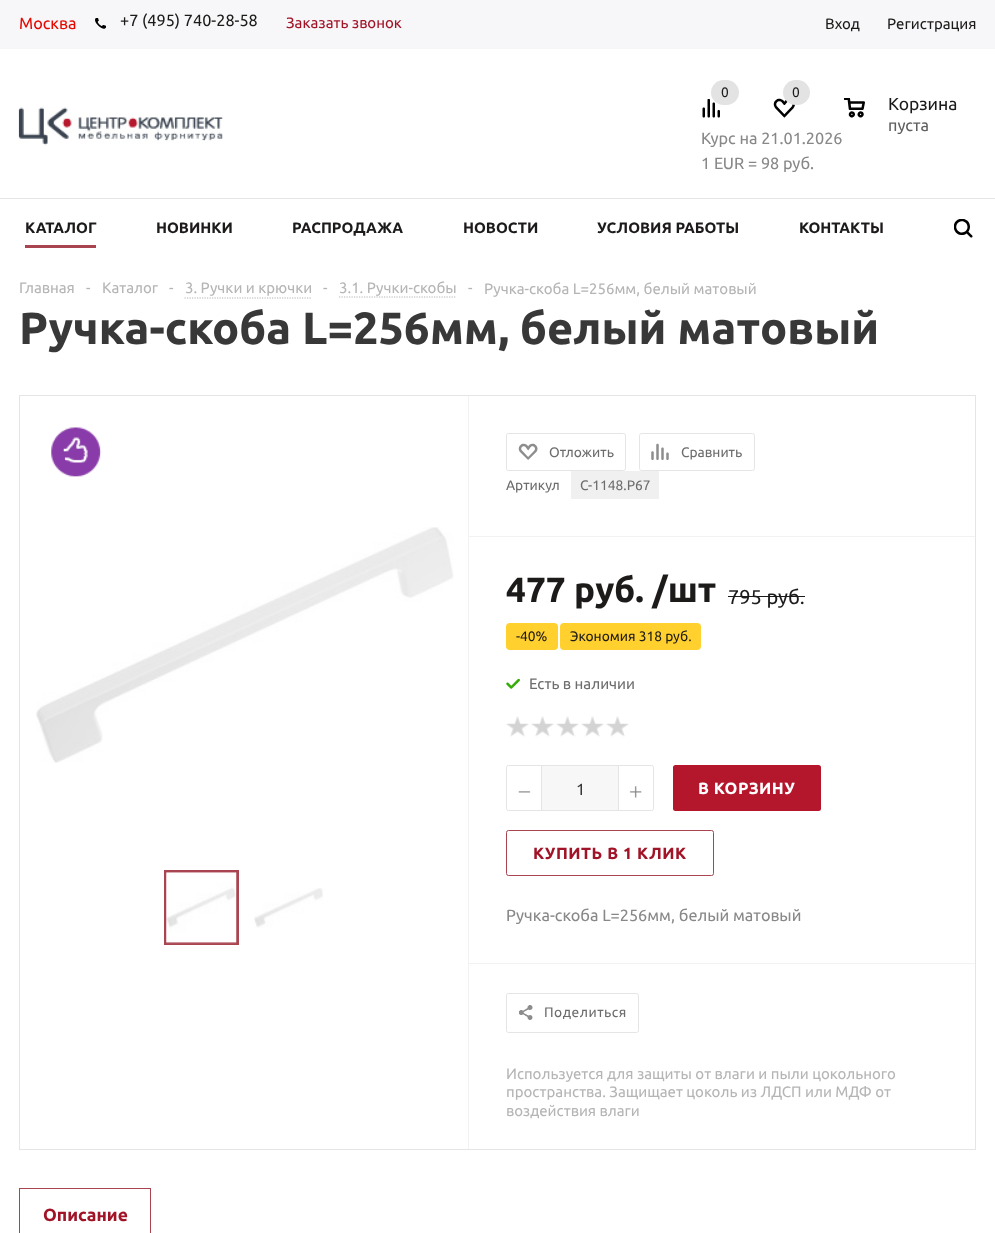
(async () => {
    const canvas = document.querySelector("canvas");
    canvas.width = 995;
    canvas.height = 1233;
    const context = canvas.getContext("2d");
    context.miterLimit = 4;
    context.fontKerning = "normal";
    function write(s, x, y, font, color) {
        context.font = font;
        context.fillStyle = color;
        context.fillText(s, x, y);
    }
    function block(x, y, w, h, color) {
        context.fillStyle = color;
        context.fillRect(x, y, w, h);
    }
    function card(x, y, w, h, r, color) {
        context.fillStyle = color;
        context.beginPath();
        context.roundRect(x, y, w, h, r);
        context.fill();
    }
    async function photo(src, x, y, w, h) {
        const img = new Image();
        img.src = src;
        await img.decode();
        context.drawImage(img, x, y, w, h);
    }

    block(0, 0, 995, 1233, "rgb(255, 255, 255)");
    block(0, 0, 995, 49, "rgb(247, 247, 249)");
    write("Москва", 19, 29, "16.25px Ubuntu", "rgb(230, 9, 0)");
    await photo("media/1.png", 95, 18, 11, 11);
    write("+7 (495) 740-28-58", 120, 26, "16.25px Ubuntu", "rgb(29, 26, 26)");
    write("Заказать звонок", 286, 28, "15px Ubuntu", "rgb(161, 20, 40)");
    write("Вход", 825, 29, "15px Ubuntu", "rgb(29, 26, 26)");
    write("Регистрация", 887, 29, "15px Ubuntu", "rgb(29, 26, 26)");
    block(0, 198, 995, 1, "rgb(229, 229, 229)");
    await photo("media/2.png", 18, 107, 205, 39);
    await photo("media/3.png", 702, 99, 18, 19);
    card(711, 80, 28, 25, 12.5, "rgb(227, 227, 227)");
    write("0", 721, 97, "13.75px Ubuntu", "rgb(29, 26, 26)");
    await photo("media/4.png", 773, 98, 22, 20);
    card(783, 80, 27, 25, 12.5, "rgb(227, 227, 227)");
    write("0", 792, 97, "13.75px Ubuntu", "rgb(29, 26, 26)");
    await photo("media/5.png", 844, 98, 21, 20);
    write("Корзина", 888, 110, "17.5px Ubuntu", "rgb(29, 26, 26)");
    write("пуста", 888, 131, "16.25px Ubuntu", "rgb(95, 95, 95)");
    write("Курс на 21.01.2026", 701, 144, "16.25px Ubuntu", "rgb(136, 136, 136)");
    write("1 EUR = 98 руб.", 701, 169, "16.25px Ubuntu", "rgb(136, 136, 136)");
    block(25, 245, 71, 3, "rgb(168, 69, 80)");
    write("КАТАЛОГ", 25, 233, "bold 15px Ubuntu", "rgb(29, 26, 26)");
    write("НОВИНКИ", 156, 233, "bold 15px Ubuntu", "rgb(29, 26, 26)");
    write("РАСПРОДАЖА", 292, 233, "bold 15px Ubuntu", "rgb(29, 26, 26)");
    write("НОВОСТИ", 463, 233, "bold 15px Ubuntu", "rgb(29, 26, 26)");
    write("УСЛОВИЯ РАБОТЫ", 597, 233, "bold 15px Ubuntu", "rgb(29, 26, 26)");
    write("КОНТАКТЫ", 799, 233, "bold 15px Ubuntu", "rgb(29, 26, 26)");
    await photo("media/6.png", 954, 219, 19, 19);
    write("Главная", 19, 293, "15px Ubuntu", "rgb(182, 181, 181)");
    write("-", 86, 293, "15px Ubuntu", "rgb(182, 181, 181)");
    write("Каталог", 102, 293, "15px Ubuntu", "rgb(182, 181, 181)");
    write("-", 169, 293, "15px Ubuntu", "rgb(182, 181, 181)");
    write("3. Ручки и крючки", 185, 293, "15px Ubuntu", "rgb(182, 181, 181)");
    context.beginPath();
    context.moveTo(184.5, 298);
    context.lineTo(312, 298);
    context.strokeStyle = "rgb(182, 181, 181)";
    context.lineWidth = 1.2;
    context.setLineDash([1.25, 1.25]);
    context.stroke();
    write("-", 323, 293, "15px Ubuntu", "rgb(182, 181, 181)");
    write("3.1. Ручки-скобы", 339, 293, "15px Ubuntu", "rgb(182, 181, 181)");
    context.beginPath();
    context.moveTo(339, 297);
    context.lineTo(456.5, 297);
    context.stroke();
    write("-", 468, 293, "15px Ubuntu", "rgb(182, 181, 181)");
    write("Ручка-скоба L=256мм, белый матовый", 484, 294, "15px Ubuntu", "rgb(182, 181, 181)");
    write("Ручка-скоба L=256мм, белый матовый", 19, 344, "bold 45px Ubuntu", "rgb(56, 56, 56)");
    context.strokeStyle = "rgb(229, 229, 229)";
    context.lineWidth = 1;
    context.setLineDash([]);
    context.strokeRect(19.5, 395.5, 956, 754);
    await photo("media/7.png", 51, 427, 51, 50);
    await photo("media/8.png", 36, 527, 418, 236);
    context.strokeStyle = "rgb(168, 69, 80)";
    context.lineWidth = 3;
    context.strokeRect(165.5, 871.5, 72, 72);
    await photo("media/9.png", 166, 872, 71, 72);
    await photo("media/10.png", 254, 888, 69, 40);
    block(468, 396, 1, 753, "rgb(242, 242, 242)");
    block(469, 536, 506, 1, "rgb(242, 242, 242)");
    context.beginPath();
    context.roundRect(506.5, 433.5, 119, 37, 2);
    context.strokeStyle = "rgb(229, 229, 229)";
    context.lineWidth = 1;
    context.stroke();
    await photo("media/11.png", 518, 443, 20, 17);
    write("Отложить", 549, 457, "13.75px Ubuntu", "rgb(109, 109, 109)");
    context.beginPath();
    context.roundRect(639.5, 433.5, 115, 37, 2);
    context.stroke();
    await photo("media/12.png", 651, 443, 18, 17);
    write("Сравнить", 681, 457, "13.75px Ubuntu", "rgb(109, 109, 109)");
    write("Артикул", 506, 490, "13.75px Ubuntu", "rgb(109, 109, 109)");
    block(571, 471, 88, 28, "rgb(240, 240, 240)");
    write("C-1148.P67", 580, 490, "13.75px Ubuntu", "rgb(109, 109, 109)");
    block(469, 963, 506, 1, "rgb(242, 242, 242)");
    write("477 руб. /шт", 506, 602, "bold 35px Ubuntu", "rgb(29, 26, 26)");
    write("795 руб.", 728, 604, "20px Ubuntu", "rgb(29, 26, 26)");
    block(728, 596, 77, 1, "rgb(29, 26, 26)");
    card(506, 623, 52, 27, 4, "rgb(255, 208, 46)");
    write("-40%", 516, 641, "13.75px Ubuntu", "rgb(29, 26, 26)");
    card(560, 623, 141, 27, 4, "rgb(255, 208, 46)");
    write("Экономия 318 руб.", 570, 641, "13.75px Ubuntu", "rgb(29, 26, 26)");
    await photo("media/13.png", 506, 679, 14, 10);
    write("Есть в наличии", 529, 689, "15px Ubuntu", "rgb(109, 109, 109)");
    await photo("media/14.png", 506, 716, 23, 21);
    await photo("media/14.png", 531, 716, 23, 21);
    await photo("media/14.png", 556, 716, 23, 21);
    await photo("media/14.png", 581, 716, 23, 21);
    await photo("media/14.png", 606, 716, 23, 21);
    context.beginPath();
    context.roundRect(506.5, 765.5, 147, 45, 2);
    context.stroke();
    await photo("media/15.png", 518, 791, 13, 2);
    block(542, 766, 76, 44, "rgb(247, 247, 247)");
    block(618, 766, 1, 44, "rgb(229, 229, 229)");
    block(541, 766, 1, 44, "rgb(229, 229, 229)");
    write("1", 576, 795, "16.25px Ubuntu", "rgb(56, 56, 56)");
    await photo("media/16.png", 629, 786, 13, 12);
    card(673, 765, 148, 46, 2.5, "rgb(180, 22, 44)");
    context.letterSpacing = "0.5px";
    write("В КОРЗИНУ", 698, 794, "bold 16.25px Ubuntu", "rgb(255, 255, 255)");
    context.beginPath();
    context.roundRect(506.5, 830.5, 207, 45, 2);
    context.strokeStyle = "rgb(168, 69, 80)";
    context.stroke();
    write("КУПИТЬ В 1 КЛИК", 533, 859, "bold 16.25px Ubuntu", "rgb(161, 20, 40)");
    context.letterSpacing = "0px";
    write("Ручка-скоба L=256мм, белый матовый", 506, 921, "16.25px Ubuntu", "rgb(136, 136, 136)");
    context.beginPath();
    context.roundRect(506.5, 993.5, 132, 39, 2);
    context.strokeStyle = "rgb(229, 229, 229)";
    context.stroke();
    await photo("media/17.png", 519, 1005, 14, 15);
    context.letterSpacing = "0.5px";
    write("Поделиться", 544, 1017, "13.75px Ubuntu", "rgb(109, 109, 109)");
    context.letterSpacing = "0px";
    write("Используется для защиты от влаги и пыли цокольного", 506, 1079, "15px Ubuntu", "rgb(182, 181, 181)");
    write("пространства. Защищает цоколь из ЛДСП или МДФ от", 506, 1097, "15px Ubuntu", "rgb(182, 181, 181)");
    write("воздействия влаги", 506, 1116, "15px Ubuntu", "rgb(182, 181, 181)");
    context.strokeStyle = "rgb(168, 69, 80)";
    context.strokeRect(19.5, 1188.5, 131, 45);
    write("Описание", 43, 1221, "bold 17.5px Ubuntu", "rgb(161, 20, 40)");
})();
